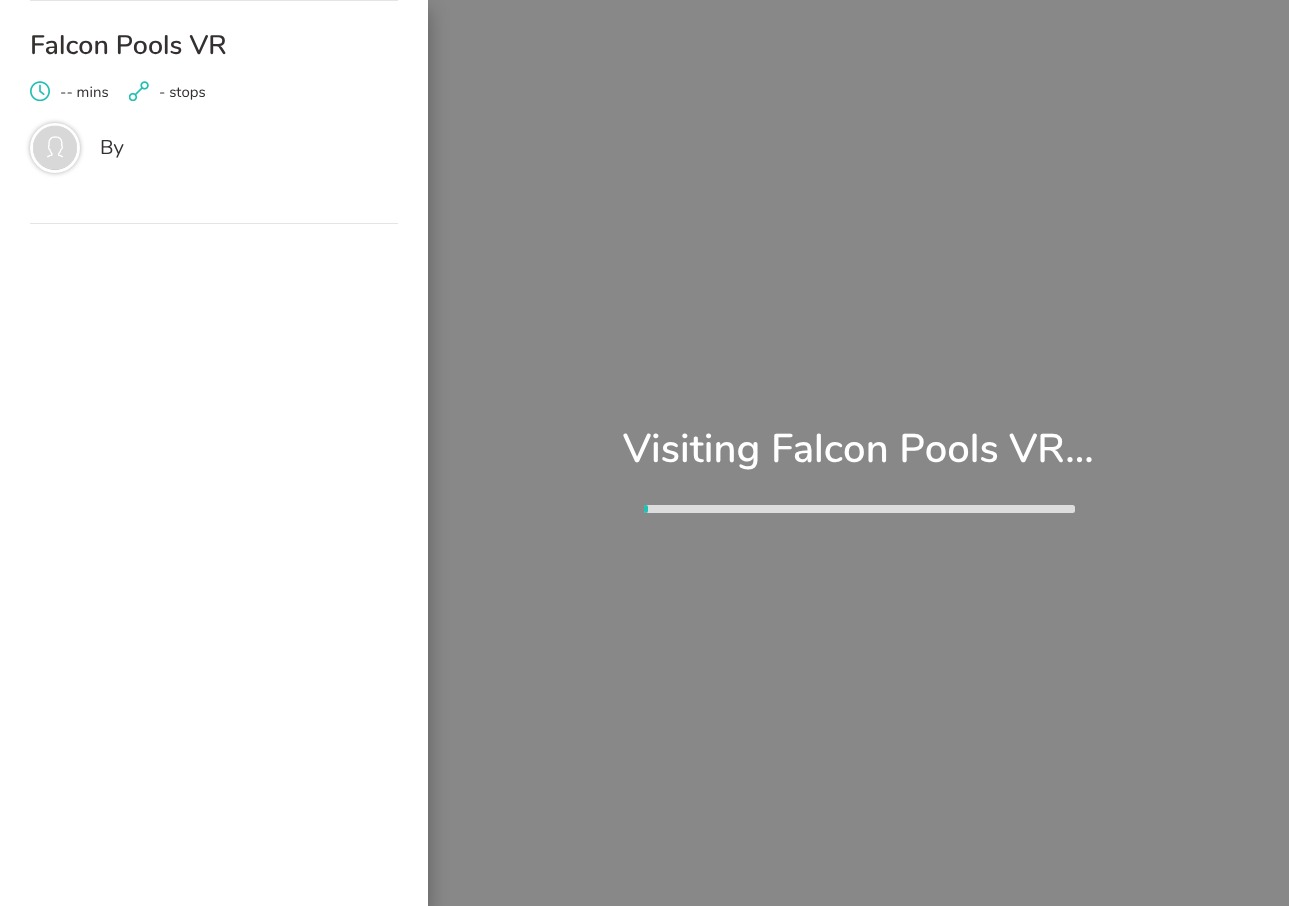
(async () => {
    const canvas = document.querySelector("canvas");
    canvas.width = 1289;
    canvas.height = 906;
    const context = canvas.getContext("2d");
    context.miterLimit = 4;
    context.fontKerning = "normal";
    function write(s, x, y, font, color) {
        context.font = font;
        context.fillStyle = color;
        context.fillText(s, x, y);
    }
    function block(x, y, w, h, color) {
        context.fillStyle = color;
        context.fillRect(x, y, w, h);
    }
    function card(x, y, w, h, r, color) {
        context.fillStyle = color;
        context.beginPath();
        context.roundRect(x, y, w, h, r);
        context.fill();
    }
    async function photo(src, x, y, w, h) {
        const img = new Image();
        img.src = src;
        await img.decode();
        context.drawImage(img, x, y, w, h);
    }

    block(0, 0, 1289, 906, "rgb(136, 136, 136)");
    context.fillStyle = "rgba(0, 0, 0, 0.32)";
    context.filter = "blur(10px)";
    context.beginPath();
    context.rect(0, 10, 428, 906);
    context.fill();
    context.filter = "none";
    block(0, 0, 428, 906, "rgb(255, 255, 255)");
    block(30, 0, 368, 1, "rgb(229, 227, 227)");
    block(30, 223, 368, 1, "rgb(229, 227, 227)");
    write("Falcon Pools VR", 30, 54, "600 26.75px Nunito", "rgb(52, 48, 48)");
    await photo("media/1.png", 30, 81, 20, 20);
    write("-- mins", 60, 97, "15px Nunito", "rgb(52, 48, 48)");
    await photo("media/2.png", 129, 81, 20, 20);
    write("- stops", 159, 97, "15px Nunito", "rgb(52, 48, 48)");
    context.fillStyle = "rgba(0, 0, 0, 0.32)";
    context.filter = "blur(2.5px)";
    context.beginPath();
    context.roundRect(30, 123, 50, 50, 25);
    context.fill();
    context.filter = "none";
    context.beginPath();
    context.arc(55, 148, 23.5, 0, Math.PI * 2);
    context.strokeStyle = "rgb(255, 255, 255)";
    context.lineWidth = 3;
    context.stroke();
    await photo("media/3.png", 33, 125, 44, 45);
    write("By", 100, 154, "20px Nunito", "rgb(52, 48, 48)");
    write("Visiting Falcon Pools VR...", 623, 462, "600 40px Nunito", "rgb(255, 255, 255)");
    card(644, 505, 431, 8, 2.5, "rgb(221, 221, 221)");
    card(644, 505, 4, 8, 2, "rgb(34, 191, 179)");
})();
